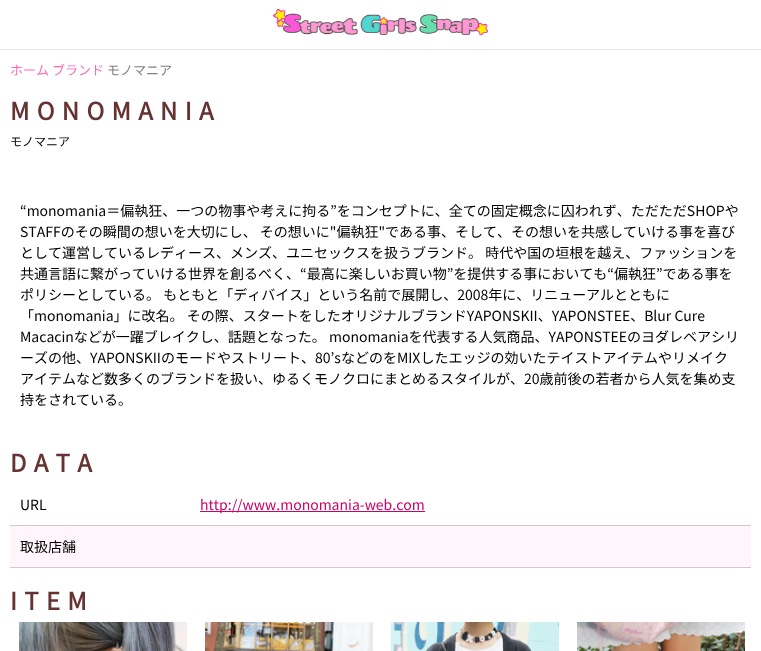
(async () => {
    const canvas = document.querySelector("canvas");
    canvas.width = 761;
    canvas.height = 651;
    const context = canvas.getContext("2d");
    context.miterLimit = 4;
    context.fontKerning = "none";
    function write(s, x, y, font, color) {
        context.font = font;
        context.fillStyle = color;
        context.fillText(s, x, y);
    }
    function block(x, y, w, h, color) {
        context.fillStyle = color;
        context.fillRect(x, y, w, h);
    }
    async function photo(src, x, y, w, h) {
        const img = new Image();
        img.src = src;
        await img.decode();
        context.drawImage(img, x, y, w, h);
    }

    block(0, 0, 761, 651, "rgb(255, 255, 255)");
    block(0, 49, 761, 1, "rgb(225, 232, 237)");
    await photo("media/1.png", 273, 9, 215, 27);
    write("ホーム", 10, 75, "100 13px Noto Sans JP", "rgb(255, 105, 180)");
    write("ブランド", 52, 75, "100 13px Noto Sans JP", "rgb(255, 105, 180)");
    write("モノマニア", 107, 75, "100 13px Noto Sans JP", "rgb(128, 128, 128)");
    context.letterSpacing = "7.25px";
    write("MONOMANIA", 10, 120, "bold 24px Noto Sans JP", "rgb(102, 51, 51)");
    context.letterSpacing = "0px";
    write("モノマニア", 10, 146, "100 12px Noto Sans JP", "rgb(0, 0, 0)");
    write("“monomania＝偏執狂、一つの物事や考えに拘る”をコンセプトに、全ての固定概念に囚われず、ただただSHOPや", 20, 216, "100 14px Noto Sans JP", "rgb(0, 0, 0)");
    write("STAFFのその瞬間の想いを大切にし、 その想いに\"偏執狂\"である事、そして、その想いを共感していける事を喜び", 20, 237, "100 14px Noto Sans JP", "rgb(0, 0, 0)");
    write("として運営しているレディース、メンズ、ユニセックスを扱う", 20, 258, "100 14px Noto Sans JP", "rgb(0, 0, 0)");
    write("ブランド。 時代や国の垣根を越え、ファッションを", 412, 258, "100 14px Noto Sans JP", "rgb(0, 0, 0)");
    write("共通言語に繋がっていける世界を創るべく、“最高に楽しいお買い物”を提供する事においても“偏執狂”である事を", 20, 279, "100 14px Noto Sans JP", "rgb(0, 0, 0)");
    write("ポリシーとしている。 もともと「ディバイス」という名前で展開し、2008年に、リニュー", 20, 300, "100 14px Noto Sans JP", "rgb(0, 0, 0)");
    write("アルとともに", 586, 300, "100 14px Noto Sans JP", "rgb(0, 0, 0)");
    write("「monomania」に改名。 その際、スタートをしたオリジナルブランドYAPONSKII、YAPONSTEE、Blur Cure", 20, 321, "100 14px Noto Sans JP", "rgb(0, 0, 0)");
    write("Macacinなどが一躍ブレイクし、話題となった。 monomaniaを代表する人気商品、YAPONSTEEのヨダレベアシリ", 20, 342, "100 14px Noto Sans JP", "rgb(0, 0, 0)");
    write("ーズの他、YAPONSKIIのモードやストリート、80’sなどのをMIXしたエッジの効いたテイストアイ", 20, 363, "100 14px Noto Sans JP", "rgb(0, 0, 0)");
    write("テムやリメイク", 630, 363, "100 14px Noto Sans JP", "rgb(0, 0, 0)");
    write("アイテムなど数多くのブランドを扱い、ゆるくモノクロにまとめるスタイルが、20歳前後の若者から人気を集め支", 20, 384, "100 14px Noto Sans JP", "rgb(0, 0, 0)");
    write("持をされている。", 20, 405, "100 14px Noto Sans JP", "rgb(0, 0, 0)");
    context.letterSpacing = "7.25px";
    write("DATA", 10, 472, "bold 24px Noto Sans JP", "rgb(102, 51, 51)");
    block(10, 525, 741, 1, "rgb(204, 204, 204)");
    context.letterSpacing = "0px";
    write("URL", 20, 510, "100 14px Noto Sans JP", "rgb(0, 0, 0)");
    block(200, 511, 225, 1, "rgb(204, 0, 102)");
    write("http://www.monomania-web.com", 200, 510, "100 14px Noto Sans JP", "rgb(204, 0, 102)");
    block(10, 526, 741, 41, "rgb(255, 245, 250)");
    block(10, 567, 741, 1, "rgb(204, 204, 204)");
    write("取扱店舗", 20, 552, "100 14px Noto Sans JP", "rgb(0, 0, 0)");
    context.letterSpacing = "7.25px";
    write("ITEM", 10, 610, "bold 24px Noto Sans JP", "rgb(102, 51, 51)");
    await photo("media/2.png", 19, 622, 168, 29);
    await photo("media/3.png", 205, 622, 168, 29);
    await photo("media/4.png", 391, 622, 168, 29);
    await photo("media/5.png", 577, 622, 168, 29);
})();
